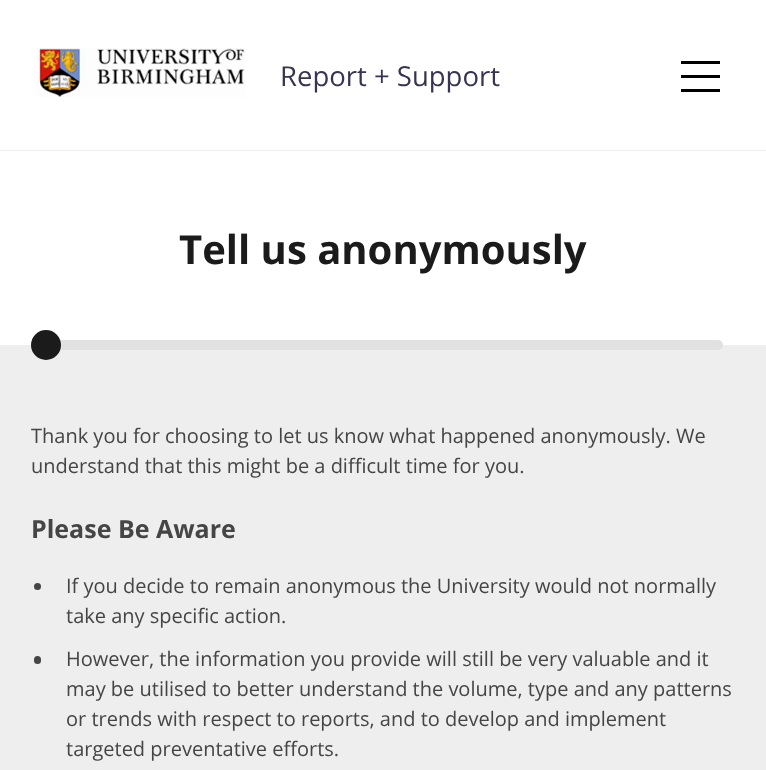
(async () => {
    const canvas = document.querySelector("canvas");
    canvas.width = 766;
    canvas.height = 770;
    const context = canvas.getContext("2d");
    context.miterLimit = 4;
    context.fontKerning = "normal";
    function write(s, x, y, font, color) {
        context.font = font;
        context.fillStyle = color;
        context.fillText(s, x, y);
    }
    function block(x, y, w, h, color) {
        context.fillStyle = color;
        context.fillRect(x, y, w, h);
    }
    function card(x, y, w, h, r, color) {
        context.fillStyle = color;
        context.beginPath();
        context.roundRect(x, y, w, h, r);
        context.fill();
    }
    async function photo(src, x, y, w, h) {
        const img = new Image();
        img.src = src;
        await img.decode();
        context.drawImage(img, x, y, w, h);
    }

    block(0, 0, 766, 770, "rgb(255, 255, 255)");
    await photo("media/1.png", 36, 48, 209, 49);
    write("Report + Support", 280, 86, "27.5px Open Sans", "rgb(56, 51, 81)");
    block(681, 61, 39, 3, "rgb(0, 0, 0)");
    block(681, 75, 39, 3, "rgb(0, 0, 0)");
    block(681, 89, 39, 3, "rgb(0, 0, 0)");
    block(0, 150, 766, 1, "rgb(238, 238, 239)");
    write("Tell us anonymously", 179, 264, "bold 40px Open Sans", "rgb(27, 27, 27)");
    block(0, 345, 766, 425, "rgb(238, 238, 239)");
    card(31, 340, 692, 10, 5, "rgb(225, 225, 225)");
    context.fillStyle = "rgb(27, 27, 27)";
    context.beginPath();
    context.arc(46, 345, 15, 0, Math.PI * 2);
    context.fill();
    write("Thank you for choosing to let us know what happened anonymously. We", 31, 443, "20px Open Sans", "rgb(69, 69, 69)");
    write("understand that this might be a difficult time for you.", 31, 473, "20px Open Sans", "rgb(69, 69, 69)");
    write("Please Be Aware", 31, 538, "bold 25px Open Sans", "rgb(69, 69, 69)");
    context.beginPath();
    context.arc(37.5, 586.5, 3.5, 0, Math.PI * 2);
    context.fill();
    write("If you decide to remain anonymous the University would not normally", 66, 593, "20px Open Sans", "rgb(69, 69, 69)");
    write("take any specific action.", 66, 623, "20px Open Sans", "rgb(69, 69, 69)");
    card(34, 656, 7, 8, 3.5, "rgb(69, 69, 69)");
    write("However, the information you provide will still be very valuable and it", 66, 666, "20px Open Sans", "rgb(69, 69, 69)");
    write("may be utilised to better understand the volume, type and any patterns", 66, 696, "20px Open Sans", "rgb(69, 69, 69)");
    write("or trends with respect to reports, and to develop and implement", 66, 726, "20px Open Sans", "rgb(69, 69, 69)");
    write("targeted preventative efforts.", 66, 756, "20px Open Sans", "rgb(69, 69, 69)");
})();
